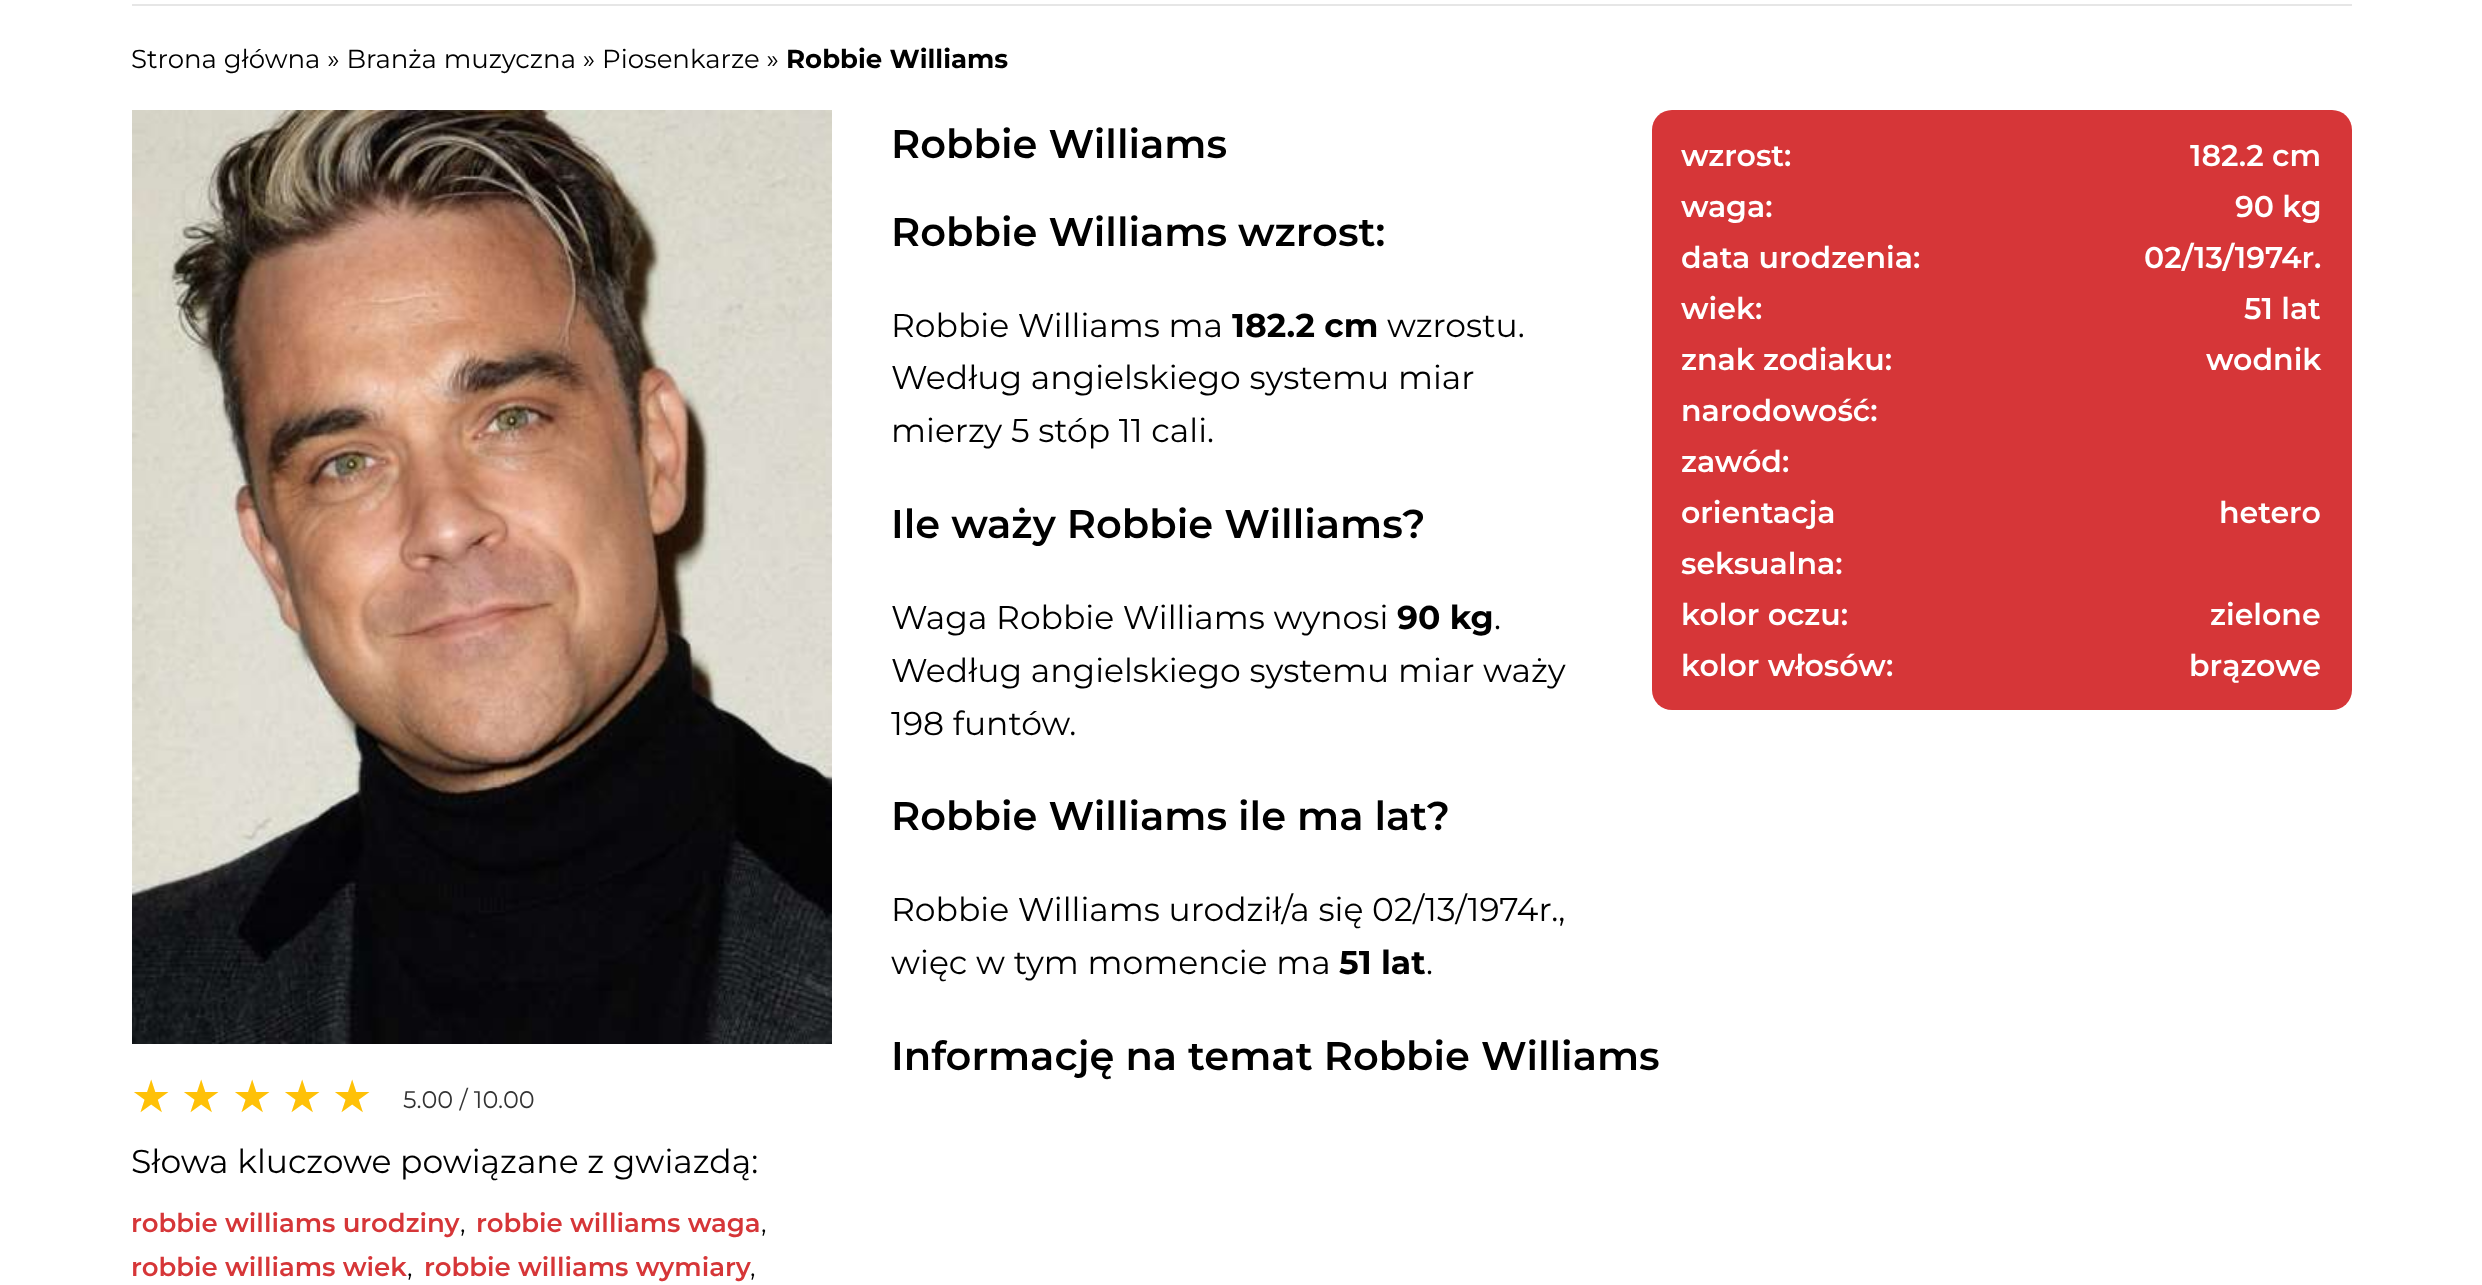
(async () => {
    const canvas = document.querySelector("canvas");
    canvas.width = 2482;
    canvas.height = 1285;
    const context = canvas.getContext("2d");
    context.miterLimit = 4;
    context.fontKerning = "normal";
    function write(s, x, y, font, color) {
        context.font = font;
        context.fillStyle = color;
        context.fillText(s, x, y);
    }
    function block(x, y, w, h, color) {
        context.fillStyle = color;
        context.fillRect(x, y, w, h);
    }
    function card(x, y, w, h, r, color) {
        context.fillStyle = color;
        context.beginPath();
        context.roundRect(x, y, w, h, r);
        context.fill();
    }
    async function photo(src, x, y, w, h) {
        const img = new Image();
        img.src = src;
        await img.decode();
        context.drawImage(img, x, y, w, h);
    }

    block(0, 0, 2482, 1285, "rgb(255, 255, 255)");
    block(132, 4, 2220, 2, "rgb(230, 230, 230)");
    write("Strona główna » Branża muzyczna » Piosenkarze »", 131, 68, "26px Montserrat", "rgb(0, 0, 0)");
    write("Robbie Williams", 786, 68, "bold 26px Montserrat", "rgb(0, 0, 0)");
    write("Robbie Williams", 891, 158, "600 40px Montserrat", "rgb(0, 0, 0)");
    write("Robbie Williams wzrost:", 891, 246, "600 40px Montserrat", "rgb(0, 0, 0)");
    write("Robbie Williams ma", 891, 337, "33px Montserrat", "rgb(0, 0, 0)");
    write("182.2 cm", 1232, 337, "bold 33px Montserrat", "rgb(0, 0, 0)");
    write("wzrostu.", 1387, 337, "33px Montserrat", "rgb(0, 0, 0)");
    write("Według angielskiego systemu miar", 891, 389, "33px Montserrat", "rgb(0, 0, 0)");
    write("mierzy 5 stóp 11 cali.", 891, 442, "33px Montserrat", "rgb(0, 0, 0)");
    write("Ile waży Robbie Williams?", 891, 538, "600 40px Montserrat", "rgb(0, 0, 0)");
    write("Waga Robbie Williams wynosi", 891, 629, "33px Montserrat", "rgb(0, 0, 0)");
    write("90 kg", 1397, 629, "bold 33px Montserrat", "rgb(0, 0, 0)");
    write(".", 1494, 629, "33px Montserrat", "rgb(0, 0, 0)");
    write("Według angielskiego systemu miar waży", 891, 682, "33px Montserrat", "rgb(0, 0, 0)");
    write("198 funtów.", 891, 735, "33px Montserrat", "rgb(0, 0, 0)");
    write("Robbie Williams ile ma lat?", 891, 830, "600 40px Montserrat", "rgb(0, 0, 0)");
    write("Robbie Williams urodził/a się 02/13/1974r.,", 891, 921, "33px Montserrat", "rgb(0, 0, 0)");
    write("więc w tym momencie ma", 891, 974, "33px Montserrat", "rgb(0, 0, 0)");
    write("51 lat", 1339, 974, "bold 33px Montserrat", "rgb(0, 0, 0)");
    write(".", 1426, 974, "33px Montserrat", "rgb(0, 0, 0)");
    card(1652, 110, 700, 600, 20, "rgb(214, 54, 56)");
    write("wzrost:", 1681, 166, "600 30px Montserrat", "rgb(255, 255, 255)");
    write("182.2 cm", 2190, 166, "600 30px Montserrat", "rgb(255, 255, 255)");
    write("waga:", 1681, 217, "600 30px Montserrat", "rgb(255, 255, 255)");
    write("90 kg", 2235, 217, "600 30px Montserrat", "rgb(255, 255, 255)");
    write("data urodzenia:", 1681, 268, "600 30px Montserrat", "rgb(255, 255, 255)");
    write("02/13/1974r.", 2144, 268, "600 30px Montserrat", "rgb(255, 255, 255)");
    write("wiek:", 1681, 319, "600 30px Montserrat", "rgb(255, 255, 255)");
    write("51 lat", 2244, 319, "600 30px Montserrat", "rgb(255, 255, 255)");
    write("znak zodiaku:", 1681, 370, "600 30px Montserrat", "rgb(255, 255, 255)");
    write("wodnik", 2206, 370, "600 30px Montserrat", "rgb(255, 255, 255)");
    write("narodowość:", 1681, 421, "600 30px Montserrat", "rgb(255, 255, 255)");
    write("zawód:", 1681, 472, "600 30px Montserrat", "rgb(255, 255, 255)");
    write("orientacja", 1681, 523, "600 30px Montserrat", "rgb(255, 255, 255)");
    write("seksualna:", 1681, 574, "600 30px Montserrat", "rgb(255, 255, 255)");
    write("hetero", 2219, 523, "600 30px Montserrat", "rgb(255, 255, 255)");
    write("kolor oczu:", 1681, 625, "600 30px Montserrat", "rgb(255, 255, 255)");
    write("zielone", 2210, 625, "600 30px Montserrat", "rgb(255, 255, 255)");
    write("kolor włosów:", 1681, 676, "600 30px Montserrat", "rgb(255, 255, 255)");
    write("brązowe", 2189, 676, "600 30px Montserrat", "rgb(255, 255, 255)");
    write("Informację na temat Robbie Williams", 891, 1070, "600 40px Montserrat", "rgb(0, 0, 0)");
    await photo("media/1.png", 132, 110, 700, 934);
    write("★", 131, 1112, "45px DejaVu Sans", "rgb(255, 193, 7)");
    write("★", 181, 1112, "45px DejaVu Sans", "rgb(255, 193, 7)");
    write("★", 232, 1112, "45px DejaVu Sans", "rgb(255, 193, 7)");
    write("★", 282, 1112, "45px DejaVu Sans", "rgb(255, 193, 7)");
    write("★", 332, 1112, "45px DejaVu Sans", "rgb(255, 193, 7)");
    write("5.00 / 10.00", 403, 1108, "24px Montserrat", "rgb(51, 51, 51)");
    write("Słowa kluczowe powiązane z gwiazdą:", 131, 1173, "33px Montserrat", "rgb(0, 0, 0)");
    write("robbie williams urodziny", 131, 1232, "600 26px Montserrat", "rgb(214, 54, 56)");
    write(",", 460, 1232, "26px Montserrat", "rgb(0, 0, 0)");
    write("robbie williams waga", 476, 1232, "600 26px Montserrat", "rgb(214, 54, 56)");
    write(",", 761, 1232, "26px Montserrat", "rgb(0, 0, 0)");
    write("robbie williams wiek", 131, 1276, "600 26px Montserrat", "rgb(214, 54, 56)");
    write(",", 407, 1276, "26px Montserrat", "rgb(0, 0, 0)");
    write("robbie williams wymiary", 424, 1276, "600 26px Montserrat", "rgb(214, 54, 56)");
    write(",", 750, 1276, "26px Montserrat", "rgb(0, 0, 0)");
})();
